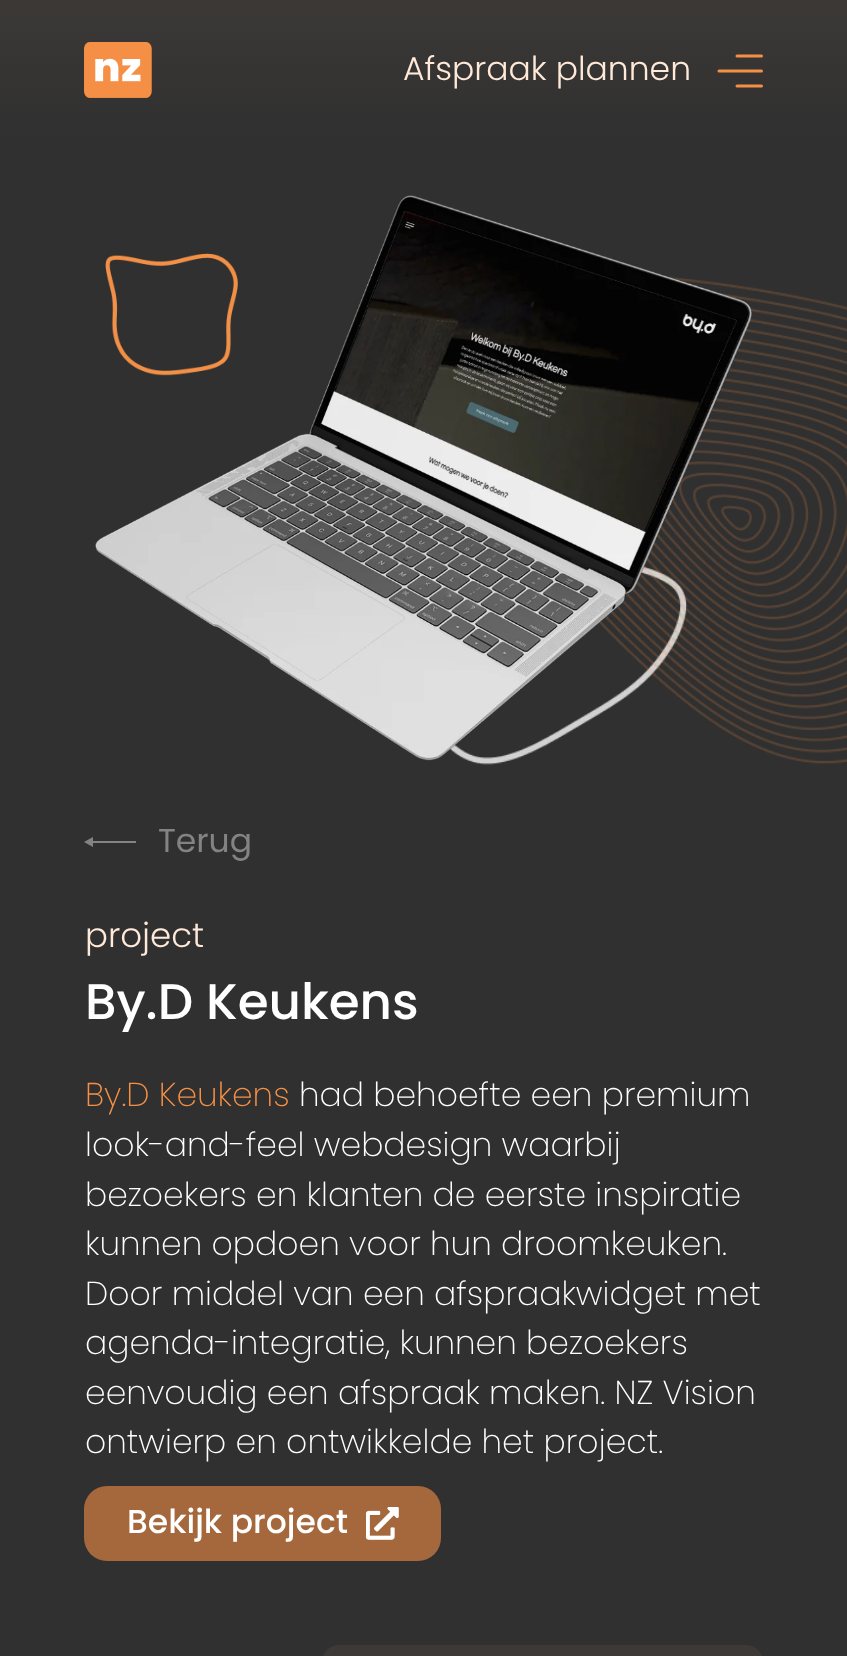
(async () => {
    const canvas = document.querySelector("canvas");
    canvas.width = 847;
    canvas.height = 1656;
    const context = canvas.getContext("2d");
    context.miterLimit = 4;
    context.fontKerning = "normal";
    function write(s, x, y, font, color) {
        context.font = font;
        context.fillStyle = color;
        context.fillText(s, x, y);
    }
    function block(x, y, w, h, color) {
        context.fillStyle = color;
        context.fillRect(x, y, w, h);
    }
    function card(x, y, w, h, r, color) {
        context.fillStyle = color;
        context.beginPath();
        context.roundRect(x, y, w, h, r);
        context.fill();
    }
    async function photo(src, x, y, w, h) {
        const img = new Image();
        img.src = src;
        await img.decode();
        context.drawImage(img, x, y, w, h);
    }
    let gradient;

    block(0, 0, 847, 1656, "rgb(255, 255, 255)");
    gradient = context.createLinearGradient(423, 0, 424, 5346);
    gradient.addColorStop(0.33, "rgb(48, 48, 48)");
    gradient.addColorStop(0.7, "rgb(24, 24, 24)");
    context.fillStyle = gradient;
    context.fillRect(0, 140, 847, 1516);
    gradient = context.createLinearGradient(424, 0, 424, 140);
    gradient.addColorStop(0, "rgb(60, 57, 55)");
    gradient.addColorStop(1, "rgb(48, 48, 48)");
    context.fillStyle = gradient;
    context.fillRect(0, 0, 847, 140);
    await photo("media/1.png", 84, 42, 68, 56);
    write("Afspraak plannen", 403, 80, "300 33px Poppins", "rgb(255, 234, 218)");
    context.beginPath();
    context.moveTo(737, 86);
    context.lineTo(761.5, 86);
    context.moveTo(719, 71);
    context.lineTo(761.5, 71);
    context.moveTo(737, 56);
    context.lineTo(761.5, 56);
    context.strokeStyle = "rgb(244, 143, 69)";
    context.lineWidth = 3;
    context.lineCap = "round";
    context.lineJoin = "round";
    context.stroke();
    await photo("media/4.png", 449, 275, 398, 490);
    await photo("media/2.png", 95, 195, 657, 566);
    await photo("media/3.png", 105, 253, 133, 123);
    context.fillStyle = "rgb(131, 131, 131)";
    context.beginPath();
    context.moveTo(84, 842);
    context.lineTo(93, 837);
    context.lineTo(93, 847);
    context.closePath();
    context.moveTo(136, 843);
    context.lineTo(92, 843);
    context.lineTo(92, 841);
    context.lineTo(136, 841);
    context.closePath();
    context.fill();
    write("Terug", 158, 852, "33px Poppins", "rgb(131, 131, 131)");
    write("project", 85, 947, "300 34px Poppins", "rgb(255, 234, 218)");
    write("By.D Keukens", 85, 1019, "500 50px Poppins", "rgb(255, 255, 255)");
    write("By.D Keukens", 85, 1106, "200 33px Poppins", "rgb(244, 143, 69)");
    write("had behoefte een premium", 299, 1106, "200 33px Poppins", "rgb(255, 255, 255)");
    write("look-and-feel webdesign waarbij", 85, 1156, "200 33px Poppins", "rgb(255, 255, 255)");
    write("bezoekers en klanten de eerste inspiratie", 85, 1206, "200 33px Poppins", "rgb(255, 255, 255)");
    write("kunnen opdoen voor hun droomkeuken.", 85, 1255, "200 33px Poppins", "rgb(255, 255, 255)");
    write("Door middel van een afspraakwidget met", 85, 1305, "200 33px Poppins", "rgb(255, 255, 255)");
    write("agenda-integratie, kunnen bezoekers", 85, 1354, "200 33px Poppins", "rgb(255, 255, 255)");
    write("eenvoudig een afspraak maken. NZ Vision", 85, 1404, "200 33px Poppins", "rgb(255, 255, 255)");
    write("ontwierp en ontwikkelde het project.", 85, 1453, "200 33px Poppins", "rgb(255, 255, 255)");
    card(84, 1486, 357, 75, 23, "rgb(164, 104, 60)");
    write("Bekijk project", 127, 1533, "500 33px Poppins", "rgb(255, 255, 255)");
    await photo("media/5.png", 366, 1507, 33, 33);
    card(322, 1645, 441, 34, 23, "rgb(60, 57, 55)");
})();
